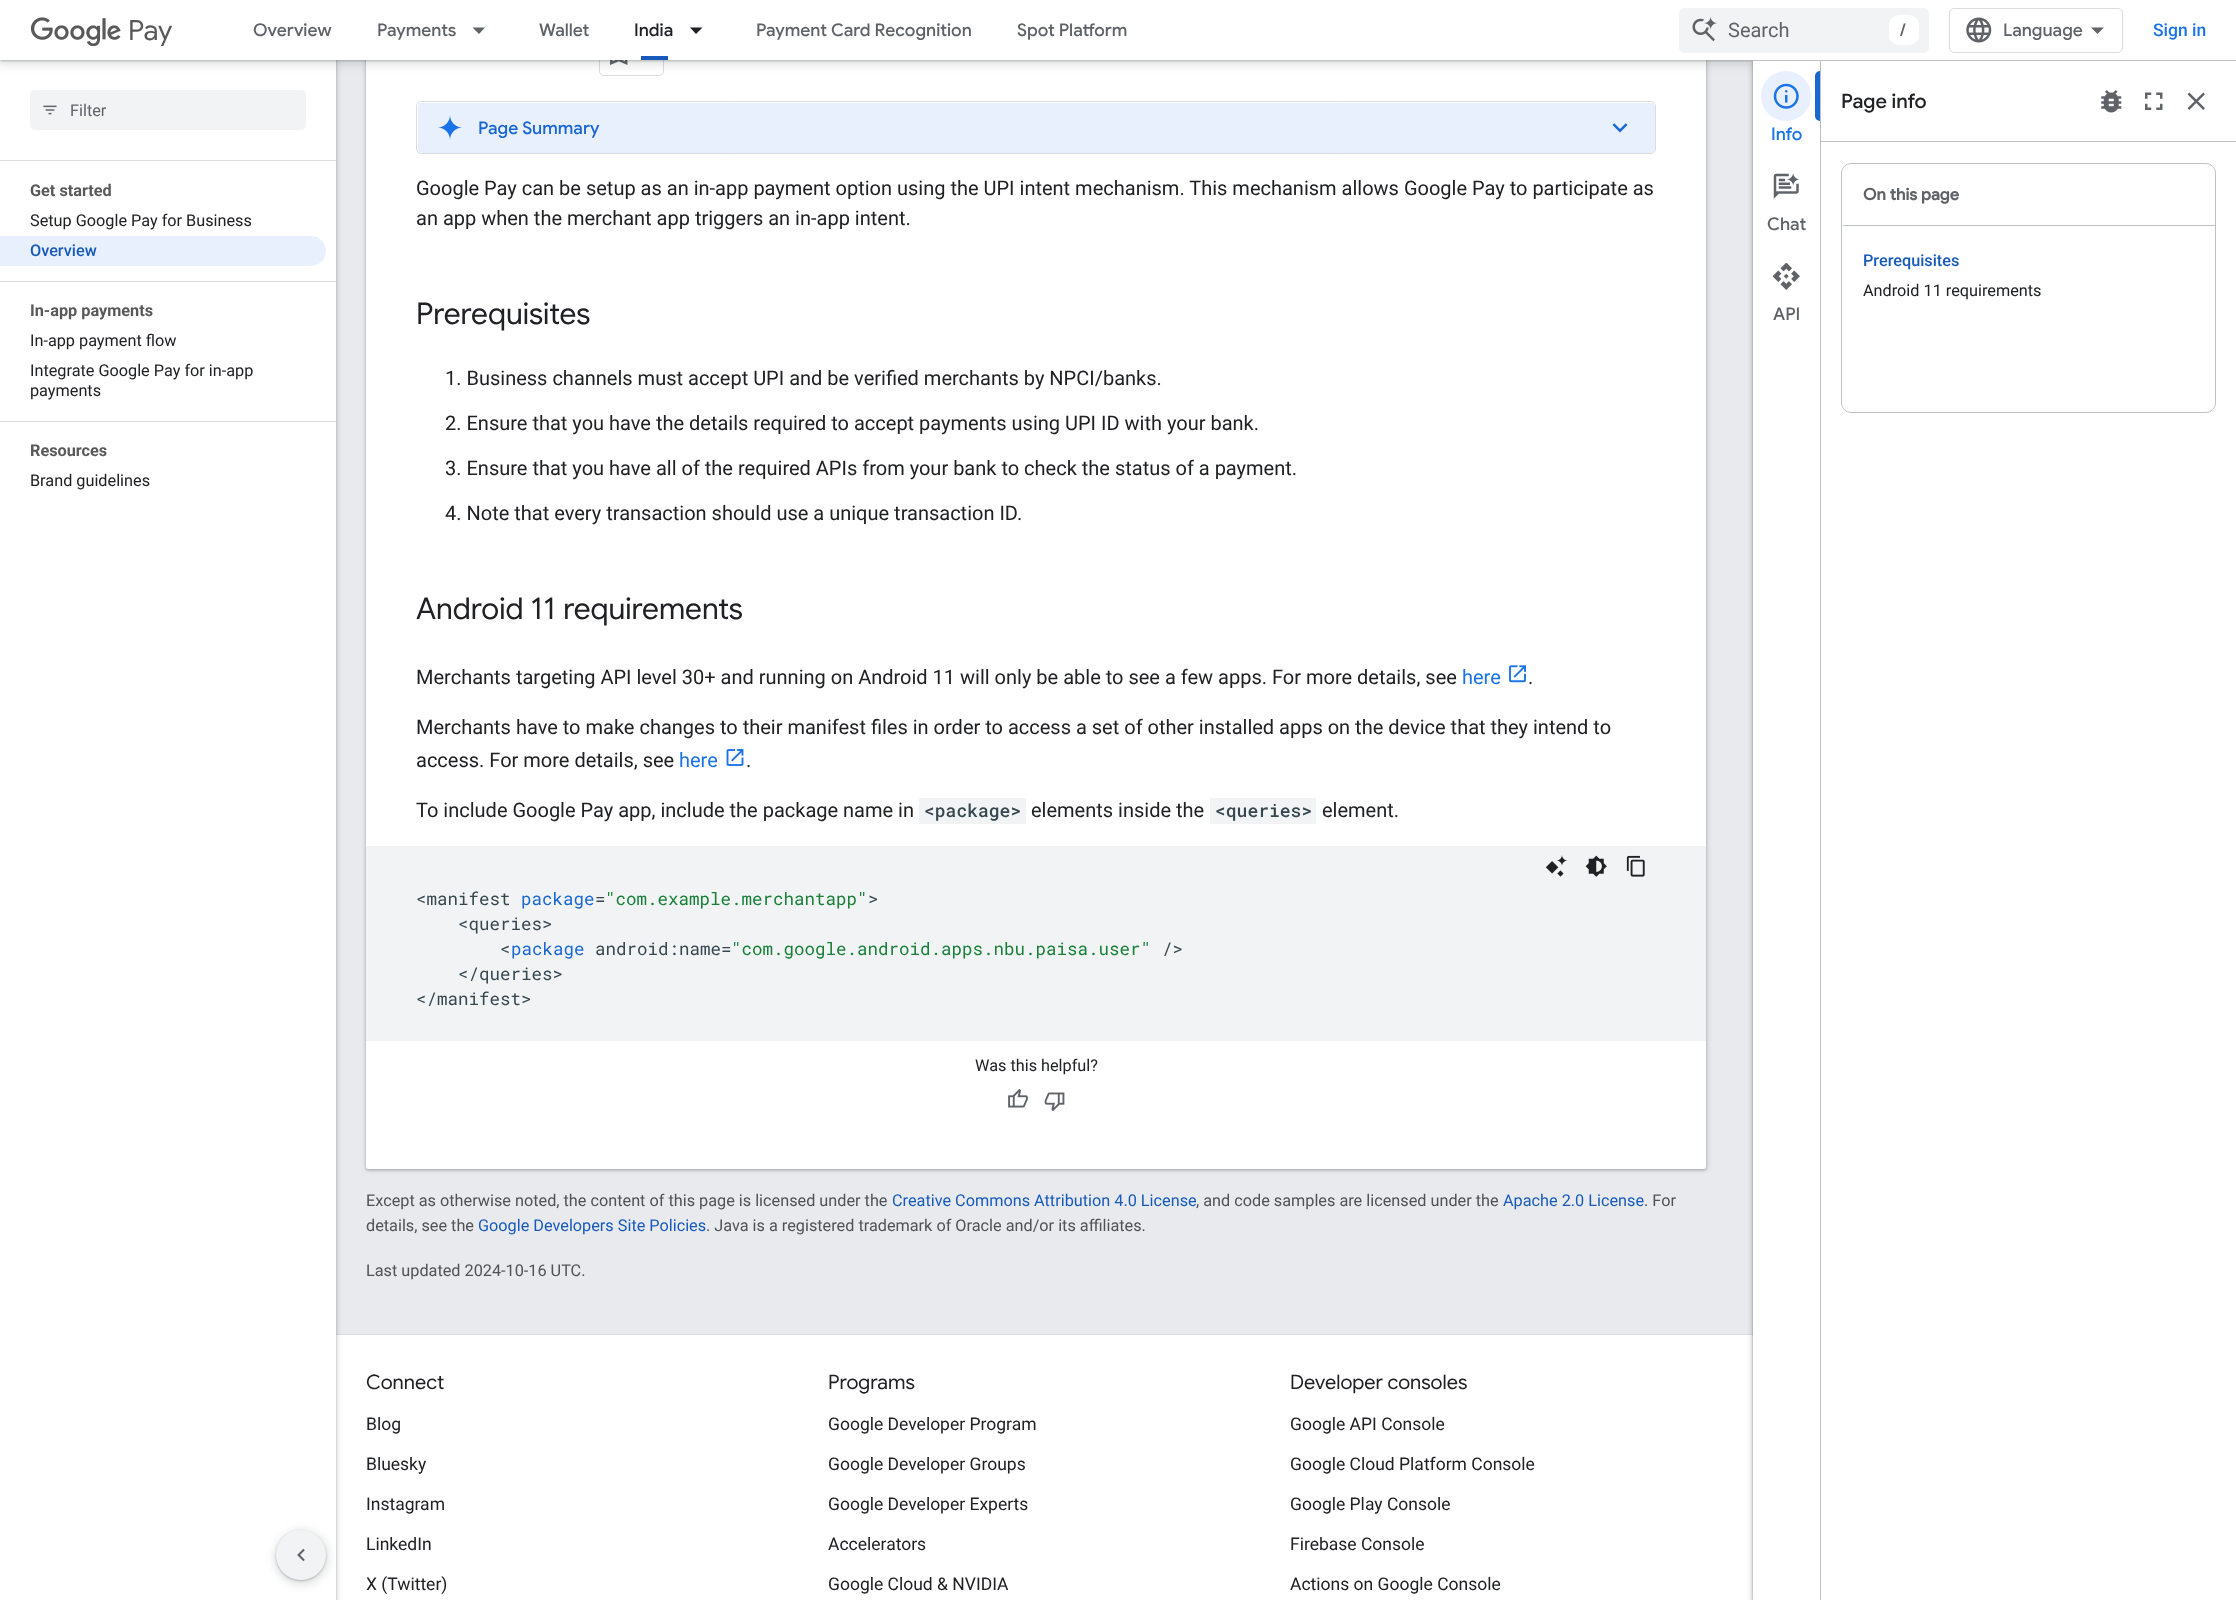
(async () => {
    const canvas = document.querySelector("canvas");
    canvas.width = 2236;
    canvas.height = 1600;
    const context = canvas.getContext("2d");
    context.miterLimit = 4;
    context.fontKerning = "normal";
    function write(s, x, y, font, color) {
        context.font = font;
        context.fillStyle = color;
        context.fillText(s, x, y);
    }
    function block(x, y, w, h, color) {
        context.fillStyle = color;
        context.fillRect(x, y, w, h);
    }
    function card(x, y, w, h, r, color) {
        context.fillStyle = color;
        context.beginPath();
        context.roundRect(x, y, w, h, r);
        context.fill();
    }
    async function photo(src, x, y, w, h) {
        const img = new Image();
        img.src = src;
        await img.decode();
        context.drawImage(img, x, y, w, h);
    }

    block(0, 0, 2236, 1600, "rgb(232, 234, 237)");
    block(336, 1334, 1417, 1, "rgb(218, 220, 224)");
    block(336, 1335, 1417, 265, "rgb(255, 255, 255)");
    context.fillStyle = "rgba(60, 64, 67, 0.15)";
    context.filter = "blur(2px)";
    context.beginPath();
    context.rect(-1, 0, 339, 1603);
    context.fill();
    context.filter = "none";
    context.fillStyle = "rgba(60, 64, 67, 0.3)";
    context.filter = "blur(1px)";
    context.beginPath();
    context.rect(0, 1, 336, 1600);
    context.fill();
    context.filter = "none";
    block(0, 60, 336, 1540, "rgb(255, 255, 255)");
    context.fillStyle = "rgba(60, 64, 67, 0.15)";
    context.filter = "blur(2px)";
    context.beginPath();
    context.roundRect(365, -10, 1343, 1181, 4);
    context.fill();
    context.filter = "none";
    context.fillStyle = "rgba(60, 64, 67, 0.3)";
    context.filter = "blur(1px)";
    context.beginPath();
    context.roundRect(366, -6, 1340, 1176, 2.5);
    context.fill();
    context.filter = "none";
    card(366, -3, 1340, 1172, 2.5, "rgb(255, 255, 255)");
    context.beginPath();
    context.roundRect(599.5, 31.5, 64, 44, 4.5);
    context.strokeStyle = "rgb(218, 220, 224)";
    context.stroke();
    await photo("media/5.png", 610, 60, 18, 5);
    context.fillStyle = "rgba(60, 64, 67, 0.15)";
    context.filter = "blur(4px)";
    context.beginPath();
    context.rect(-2, -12, 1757, 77);
    context.fill();
    context.filter = "none";
    context.fillStyle = "rgba(60, 64, 67, 0.3)";
    context.filter = "blur(1px)";
    context.beginPath();
    context.rect(0, -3, 1753, 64);
    context.fill();
    context.filter = "none";
    context.fillStyle = "rgba(0, 0, 0, 0.15)";
    context.filter = "blur(2px)";
    context.beginPath();
    context.rect(1751, 60, 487, 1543);
    context.fill();
    context.filter = "none";
    context.fillStyle = "rgba(0, 0, 0, 0.3)";
    context.filter = "blur(1px)";
    context.beginPath();
    context.rect(1753, 61, 483, 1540);
    context.fill();
    context.filter = "none";
    block(0, 0, 2236, 60, "rgb(255, 255, 255)");
    await photo("media/1.png", 30, 17, 91, 29);
    write("Pay", 128, 40, "28px Google Sans", "rgb(89, 89, 89)");
    write("Overview", 253, 36, "500 17.5px Google Sans", "rgb(95, 99, 104)");
    write("Payments", 377, 36, "500 17.5px Google Sans", "rgb(95, 99, 104)");
    context.beginPath();
    context.moveTo(472.5, 27.5);
    context.lineTo(485, 27.5);
    context.lineTo(479, 34);
    context.closePath();
    context.fill();
    write("Wallet", 539, 36, "500 17.5px Google Sans", "rgb(95, 99, 104)");
    write("India", 634, 36, "500 17.5px Google Sans", "rgb(32, 33, 36)");
    block(641, 56, 27, 4, "rgb(24, 90, 188)");
    context.fillStyle = "rgb(32, 33, 36)";
    context.beginPath();
    context.moveTo(690, 27.5);
    context.lineTo(702.5, 27.5);
    context.lineTo(696, 34);
    context.closePath();
    context.fill();
    write("Payment Card Recognition", 756, 36, "500 17.5px Google Sans", "rgb(95, 99, 104)");
    write("Spot Platform", 1017, 36, "500 17.5px Google Sans", "rgb(95, 99, 104)");
    card(1679, 8, 250, 45, 5, "rgb(241, 243, 244)");
    await photo("media/2.png", 1692, 16, 25, 26);
    write("Search", 1728, 37, "20px Roboto", "rgb(95, 99, 104)");
    card(1889, 15, 30, 30, 10, "rgb(255, 255, 255)");
    write("/", 1900, 36, "500 17.5px Google Sans", "rgb(95, 99, 104)");
    context.beginPath();
    context.roundRect(1949.5, 8.5, 173, 44, 4.5);
    context.stroke();
    await photo("media/3.png", 1966, 17, 26, 26);
    write("Language", 2003, 36, "500 17.5px Google Sans", "rgb(95, 99, 104)");
    context.beginPath();
    context.moveTo(2097.5, 34);
    context.lineTo(2091, 27.5);
    context.lineTo(2104, 27.5);
    context.closePath();
    context.fill();
    write("Sign in", 2153, 36, "500 17.5px Roboto", "rgb(26, 115, 232)");
    block(0, 160, 336, 1, "rgb(218, 220, 224)");
    card(30, 90, 276, 40, 5, "rgb(241, 243, 244)");
    await photo("media/4.png", 43, 105, 14, 10);
    write("Filter", 70, 116, "16.25px Roboto", "rgb(95, 99, 104)");
    write("Get started", 30, 196, "bold 16.25px Roboto", "rgb(89, 89, 89)");
    write("Setup Google Pay for Business", 30, 226, "16.25px Roboto", "rgb(32, 33, 36)");
    context.fillStyle = "rgb(232, 240, 254)";
    context.beginPath();
    context.roundRect(0, 236, 326, 30, [0, 15, 15, 0]);
    context.fill();
    write("Overview", 30, 256, "500 16.25px Roboto", "rgb(24, 90, 188)");
    block(0, 281, 336, 1, "rgb(218, 220, 224)");
    write("In-app payments", 30, 316, "bold 16.25px Roboto", "rgb(89, 89, 89)");
    write("In-app payment flow", 30, 346, "16.25px Roboto", "rgb(32, 33, 36)");
    write("Integrate Google Pay for in-app", 30, 376, "16.25px Roboto", "rgb(32, 33, 36)");
    write("payments", 30, 396, "16.25px Roboto", "rgb(32, 33, 36)");
    block(0, 421, 336, 1, "rgb(218, 220, 224)");
    write("Resources", 30, 456, "bold 16.25px Roboto", "rgb(89, 89, 89)");
    write("Brand guidelines", 30, 486, "16.25px Roboto", "rgb(32, 33, 36)");
    context.beginPath();
    context.roundRect(416.5, 101.5, 1239, 52, 4.5);
    context.stroke();
    card(418, 103, 1237, 50, 4, "rgb(232, 240, 254)");
    await photo("media/6.png", 438, 115, 25, 25);
    write("Page Summary", 478, 134, "500 17.5px Google Sans", "rgb(25, 103, 210)");
    await photo("media/7.png", 1612, 123, 16, 10);
    write("Google Pay can be setup as an in-app payment option using the UPI intent mechanism. This mechanism allows Google Pay to participate as", 416, 195, "20px Roboto", "rgb(32, 33, 36)");
    write("an app when the merchant app triggers an in-app intent.", 416, 225, "20px Roboto", "rgb(32, 33, 36)");
    write("Prerequisites", 416, 324, "30px Google Sans", "rgb(32, 33, 36)");
    write("1. Business channels must accept UPI and be verified merchants by NPCI/banks.", 445, 385, "20px Roboto", "rgb(32, 33, 36)");
    write("2. Ensure that you have the details required to accept payments using UPI ID with your bank.", 445, 430, "20px Roboto", "rgb(32, 33, 36)");
    write("3. Ensure that you have all of the required APIs from your bank to check the status of a payment.", 445, 475, "20px Roboto", "rgb(32, 33, 36)");
    write("4. Note that every transaction should use a unique transaction ID.", 445, 520, "20px Roboto", "rgb(32, 33, 36)");
    write("Android 11 requirements", 416, 619, "30px Google Sans", "rgb(32, 33, 36)");
    write("Merchants targeting API level 30+ and running on Android 11 will only be able to see a few apps. For more details, see", 416, 684, "20px Roboto", "rgb(32, 33, 36)");
    write("here", 1462, 684, "20px Roboto", "rgb(26, 115, 232)");
    await photo("media/8.png", 1509, 665, 17, 18);
    write(".", 1528, 684, "20px Roboto", "rgb(32, 33, 36)");
    write("Merchants have to make changes to their manifest files in order to access a set of other installed apps on the device that they intend to", 416, 734, "20px Roboto", "rgb(32, 33, 36)");
    write("access. For more details, see", 416, 767, "20px Roboto", "rgb(32, 33, 36)");
    write("here", 679, 767, "20px Roboto", "rgb(26, 115, 232)");
    await photo("media/9.png", 726, 749, 18, 17);
    write(".", 746, 767, "20px Roboto", "rgb(32, 33, 36)");
    write("To include Google Pay app, include the package name in", 416, 817, "20px Roboto", "rgb(32, 33, 36)");
    block(919, 798, 107, 26, "rgb(241, 243, 244)");
    write("<package>", 924, 817, "500 18px Roboto Mono", "rgb(55, 71, 79)");
    write("elements inside the", 1031, 817, "20px Roboto", "rgb(32, 33, 36)");
    block(1210, 798, 106, 26, "rgb(241, 243, 244)");
    write("<queries>", 1215, 817, "500 18px Roboto Mono", "rgb(55, 71, 79)");
    write("element.", 1322, 817, "20px Roboto", "rgb(32, 33, 36)");
    block(366, 846, 1340, 195, "rgb(241, 243, 244)");
    await photo("media/10.png", 1545, 855, 23, 22);
    await photo("media/11.png", 1585, 855, 22, 22);
    await photo("media/12.png", 1626, 855, 19, 22);
    write("<manifest", 416, 905, "17.5px Roboto Mono", "rgb(55, 71, 79)");
    write("package", 521, 905, "17.5px Roboto Mono", "rgb(25, 103, 210)");
    write("=", 595, 905, "17.5px Roboto Mono", "rgb(55, 71, 79)");
    write("\"com.example.merchantapp\"", 605, 905, "17.5px Roboto Mono", "rgb(24, 128, 56)");
    write(">", 868, 905, "17.5px Roboto Mono", "rgb(55, 71, 79)");
    write("<queries>", 458, 930, "17.5px Roboto Mono", "rgb(55, 71, 79)");
    write("<", 500, 955, "17.5px Roboto Mono", "rgb(55, 71, 79)");
    write("package", 511, 955, "17.5px Roboto Mono", "rgb(25, 103, 210)");
    write("android:name=", 595, 955, "17.5px Roboto Mono", "rgb(55, 71, 79)");
    write("\"com.google.android.apps.nbu.paisa.user\"", 731, 955, "17.5px Roboto Mono", "rgb(24, 128, 56)");
    write("/>", 1162, 955, "17.5px Roboto Mono", "rgb(55, 71, 79)");
    write("<\/queries>", 458, 980, "17.5px Roboto Mono", "rgb(55, 71, 79)");
    write("<\/manifest>", 416, 1005, "17.5px Roboto Mono", "rgb(55, 71, 79)");
    write("Was this helpful?", 975, 1071, "16.25px Roboto", "rgb(32, 33, 36)");
    await photo("media/13.png", 1008, 1089, 20, 19);
    await photo("media/14.png", 1044, 1092, 21, 19);
    write("Except as otherwise noted, the content of this page is licensed under the", 366, 1206, "16.25px Roboto", "rgb(81, 82, 83)");
    write("Creative Commons Attribution 4.0 License", 892, 1206, "16.25px Roboto", "rgb(24, 90, 188)");
    write(", and code samples are licensed under the", 1196, 1206, "16.25px Roboto", "rgb(81, 82, 83)");
    write("Apache 2.0 License", 1503, 1206, "16.25px Roboto", "rgb(24, 90, 188)");
    write(". For", 1644, 1206, "16.25px Roboto", "rgb(81, 82, 83)");
    write("details, see the", 366, 1231, "16.25px Roboto", "rgb(81, 82, 83)");
    write("Google Developers Site Policies", 478, 1231, "16.25px Roboto", "rgb(24, 90, 188)");
    write(". Java is a registered trademark of Oracle and/or its affiliates.", 706, 1231, "16.25px Roboto", "rgb(81, 82, 83)");
    write("Last updated 2024-10-16 UTC.", 366, 1276, "16.25px Roboto", "rgb(81, 82, 83)");
    block(1753, 61, 483, 1539, "rgb(255, 255, 255)");
    block(1753, 60, 483, 1, "rgb(189, 193, 198)");
    context.fillStyle = "rgb(232, 240, 254)";
    context.beginPath();
    context.arc(1786, 96, 25, 0, Math.PI * 2);
    context.fill();
    await photo("media/15.png", 1773, 83, 26, 26);
    context.fillStyle = "rgb(25, 103, 210)";
    context.beginPath();
    context.roundRect(1815, 71, 5, 50, [5, 0, 0, 5]);
    context.fill();
    write("Info", 1771, 140, "500 17.5px Google Sans", "rgb(26, 115, 232)");
    await photo("media/16.png", 1773, 173, 27, 26);
    write("Chat", 1767, 230, "500 17.5px Google Sans", "rgb(95, 99, 104)");
    await photo("media/17.png", 1773, 263, 27, 27);
    write("API", 1773, 320, "500 17.5px Google Sans", "rgb(95, 99, 104)");
    block(1820, 60, 1, 1540, "rgb(189, 193, 198)");
    block(1821, 141, 415, 1, "rgb(189, 193, 198)");
    write("Page info", 1841, 108, "500 20px Google Sans", "rgb(32, 33, 36)");
    await photo("media/18.png", 2101, 90, 21, 23);
    await photo("media/19.png", 2145, 92, 18, 18);
    await photo("media/20.png", 2187, 92, 18, 18);
    context.beginPath();
    context.roundRect(1841.5, 163.5, 374, 249, 9.5);
    context.strokeStyle = "rgb(189, 193, 198)";
    context.stroke();
    block(1843, 225, 372, 1, "rgb(189, 193, 198)");
    write("On this page", 1863, 200, "bold 16.25px Google Sans", "rgb(95, 99, 104)");
    write("Prerequisites", 1863, 266, "500 16.25px Roboto", "rgb(24, 90, 188)");
    write("Android 11 requirements", 1863, 296, "16.25px Roboto", "rgb(32, 33, 36)");
    write("Connect", 366, 1389, "20px Google Sans", "rgb(32, 33, 36)");
    write("Blog", 366, 1430, "17.5px Roboto", "rgb(32, 33, 36)");
    write("Bluesky", 366, 1470, "17.5px Roboto", "rgb(32, 33, 36)");
    write("Instagram", 366, 1510, "17.5px Roboto", "rgb(32, 33, 36)");
    write("LinkedIn", 366, 1550, "17.5px Roboto", "rgb(32, 33, 36)");
    write("X (Twitter)", 366, 1590, "17.5px Roboto", "rgb(32, 33, 36)");
    write("Programs", 828, 1389, "20px Google Sans", "rgb(32, 33, 36)");
    write("Google Developer Program", 828, 1430, "17.5px Roboto", "rgb(32, 33, 36)");
    write("Google Developer Groups", 828, 1470, "17.5px Roboto", "rgb(32, 33, 36)");
    write("Google Developer Experts", 828, 1510, "17.5px Roboto", "rgb(32, 33, 36)");
    write("Accelerators", 828, 1550, "17.5px Roboto", "rgb(32, 33, 36)");
    write("Google Cloud & NVIDIA", 828, 1590, "17.5px Roboto", "rgb(32, 33, 36)");
    write("Developer consoles", 1290, 1389, "20px Google Sans", "rgb(32, 33, 36)");
    write("Google API Console", 1290, 1430, "17.5px Roboto", "rgb(32, 33, 36)");
    write("Google Cloud Platform Console", 1290, 1470, "17.5px Roboto", "rgb(32, 33, 36)");
    write("Google Play Console", 1290, 1510, "17.5px Roboto", "rgb(32, 33, 36)");
    write("Firebase Console", 1290, 1550, "17.5px Roboto", "rgb(32, 33, 36)");
    write("Actions on Google Console", 1290, 1590, "17.5px Roboto", "rgb(32, 33, 36)");
    context.fillStyle = "rgba(60, 64, 67, 0.15)";
    context.filter = "blur(4px)";
    context.beginPath();
    context.roundRect(274, 1530, 55, 55, 27.5);
    context.fill();
    context.filter = "none";
    context.fillStyle = "rgba(60, 64, 67, 0.3)";
    context.filter = "blur(1px)";
    context.beginPath();
    context.roundRect(276, 1531, 50, 50, 25);
    context.fill();
    context.filter = "none";
    context.fillStyle = "rgb(241, 243, 244)";
    context.beginPath();
    context.arc(301, 1555, 25, 0, Math.PI * 2);
    context.fill();
    await photo("media/21.png", 297, 1548, 8, 14);
})();
